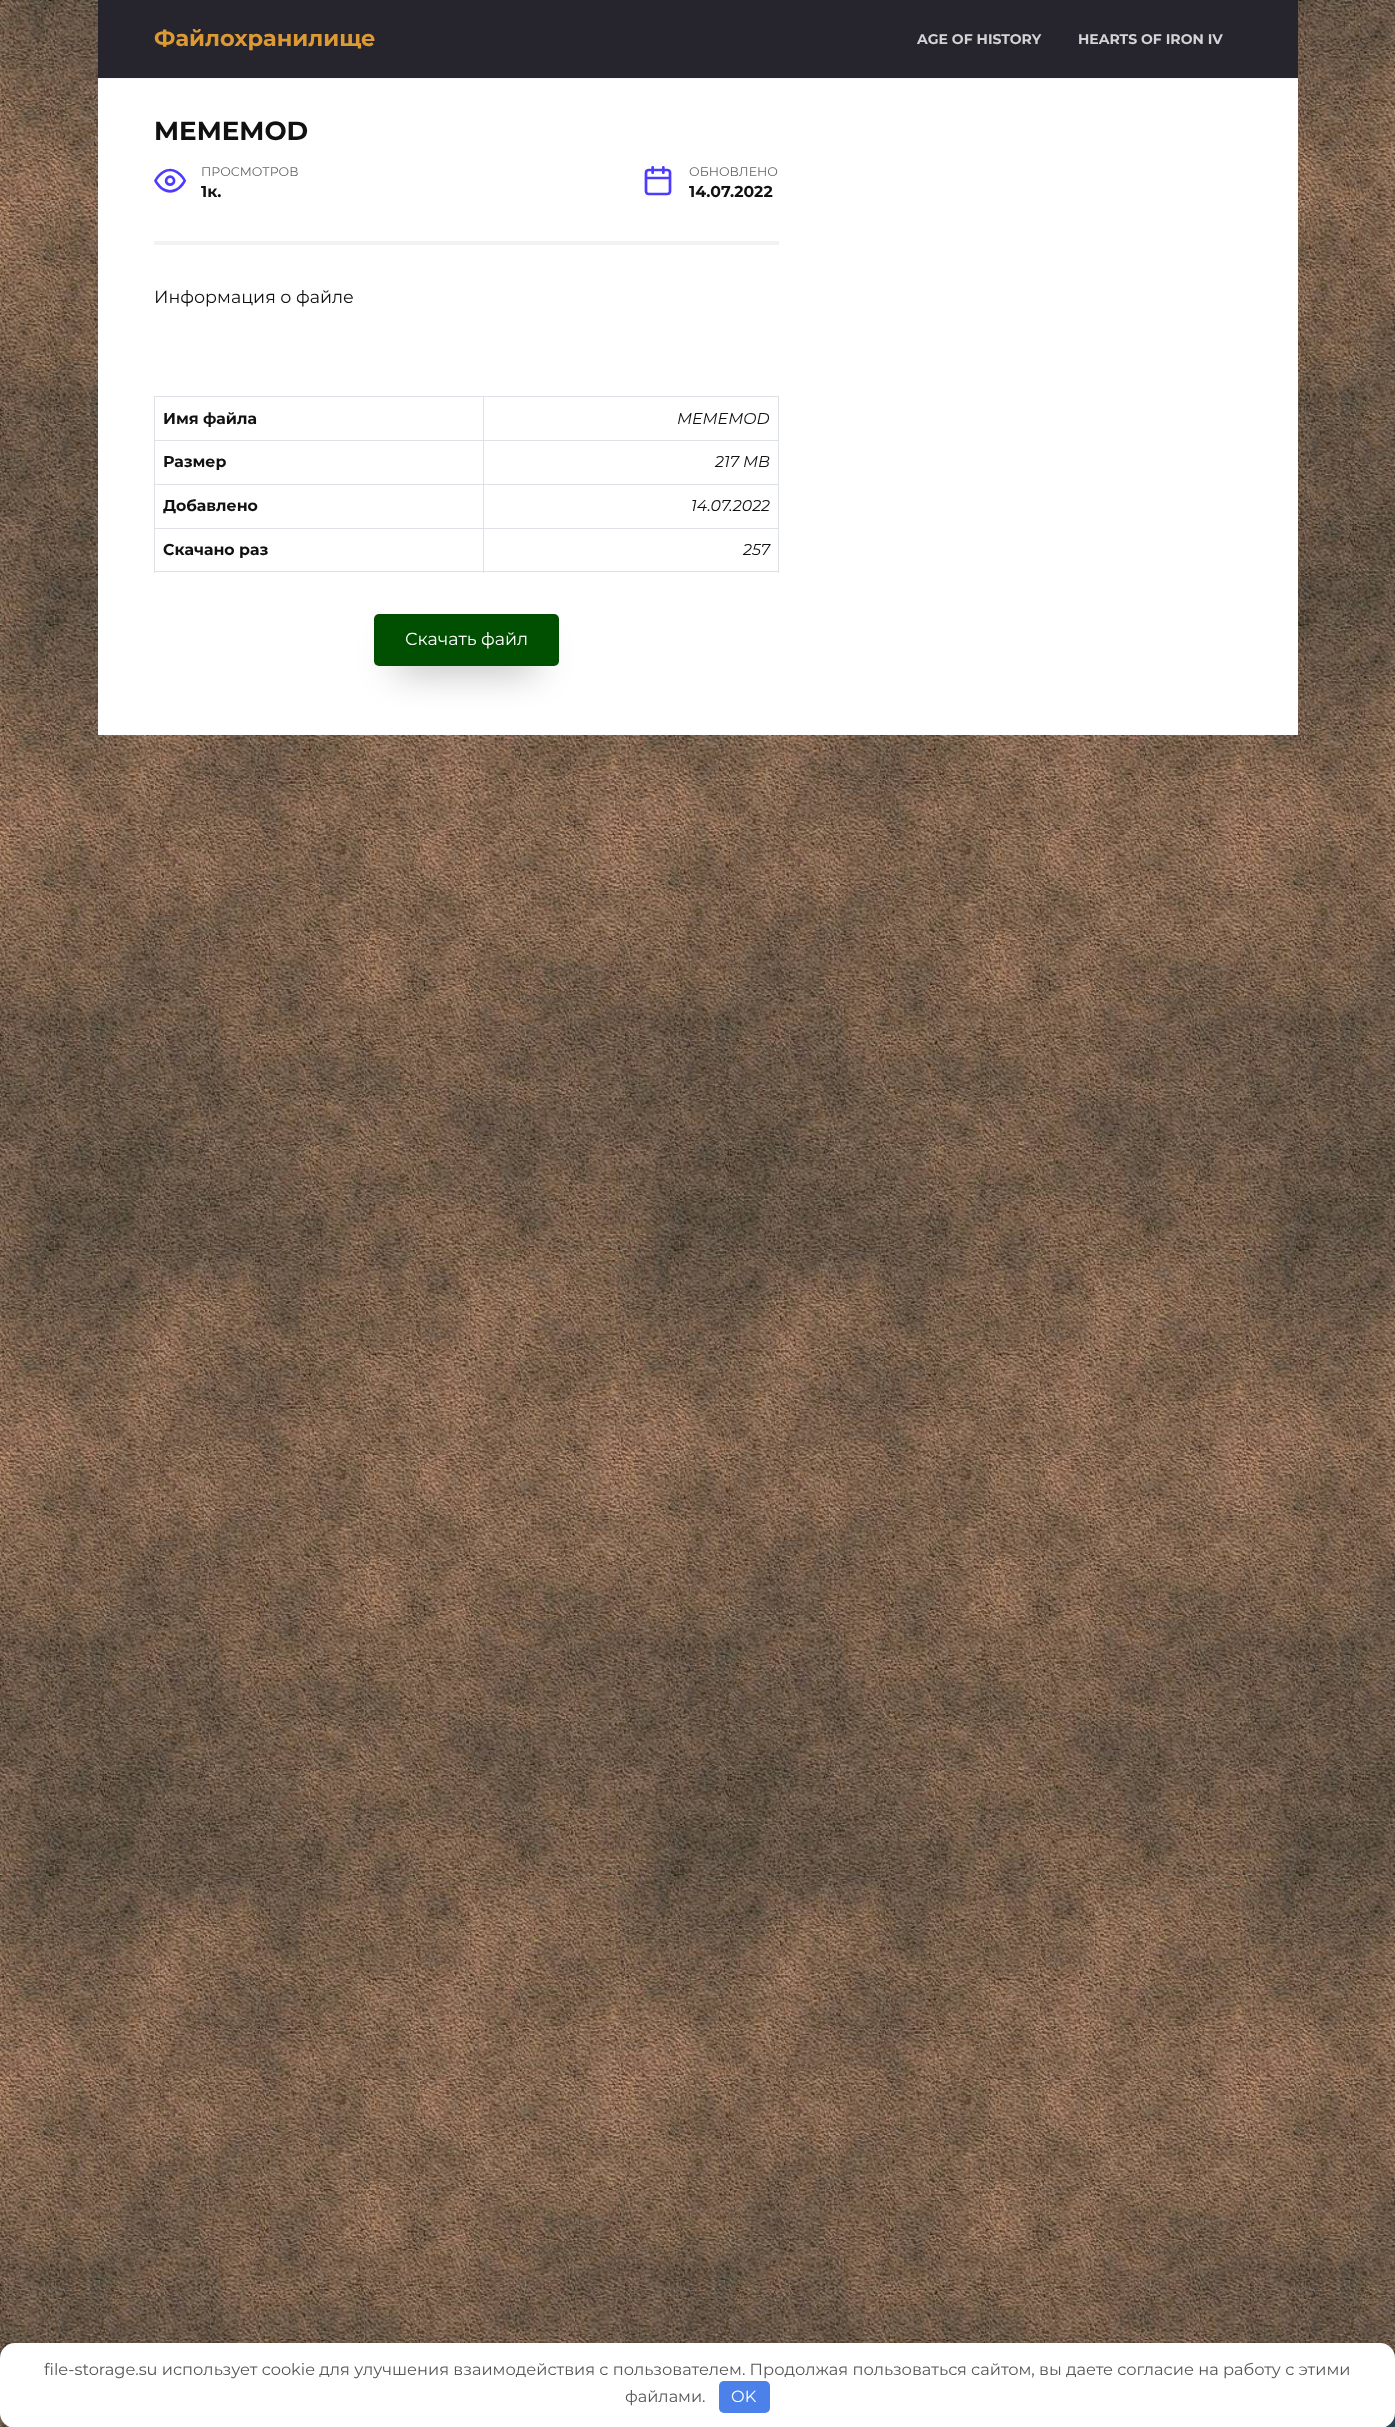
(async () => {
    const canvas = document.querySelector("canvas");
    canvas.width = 1395;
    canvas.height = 2427;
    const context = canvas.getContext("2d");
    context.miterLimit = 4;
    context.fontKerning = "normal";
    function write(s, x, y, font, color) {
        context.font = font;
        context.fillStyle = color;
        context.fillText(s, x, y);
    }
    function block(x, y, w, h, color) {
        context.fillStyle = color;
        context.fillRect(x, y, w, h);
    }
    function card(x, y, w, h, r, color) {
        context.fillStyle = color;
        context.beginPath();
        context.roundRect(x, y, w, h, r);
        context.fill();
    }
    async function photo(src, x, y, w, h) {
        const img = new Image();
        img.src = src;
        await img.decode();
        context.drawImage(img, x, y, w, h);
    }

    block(0, 0, 1395, 2427, "rgb(255, 255, 255)");
    await photo("media/1.png", 0, 0, 1395, 2427);
    block(98, 0, 1200, 78, "rgb(38, 37, 45)");
    block(98, 78, 1200, 1, "rgb(242, 245, 249)");
    write("Файлохранилище", 154, 46, "bold 22.5px Montserrat", "rgb(221, 153, 51)");
    write("AGE OF HISTORY", 917, 44, "bold 14px Montserrat", "rgb(212, 211, 213)");
    write("HEARTS OF IRON IV", 1078, 44, "bold 14px Montserrat", "rgb(212, 211, 213)");
    block(98, 79, 1200, 656, "rgb(255, 255, 255)");
    write("MEMEMOD", 154, 140, "bold 26.25px Montserrat", "rgb(17, 17, 17)");
    block(154, 241, 625, 4, "rgb(242, 242, 242)");
    write("👀", 154, 194, "32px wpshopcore", "rgb(77, 59, 254)");
    write("ПРОСМОТРОВ", 201, 176, "12.5px Montserrat", "rgb(102, 102, 102)");
    write("1к.", 201, 197, "bold 15.75px Montserrat", "rgb(17, 17, 17)");
    write("📅", 642, 194, "32px wpshopcore", "rgb(77, 59, 254)");
    write("ОБНОВЛЕНО", 689, 176, "12.5px Montserrat", "rgb(102, 102, 102)");
    write("14.07.2022", 689, 197, "bold 15.75px Montserrat", "rgb(17, 17, 17)");
    write("Информация о файле", 154, 303, "17.5px Montserrat", "rgb(17, 17, 17)");
    block(154, 396, 625, 1, "rgb(222, 226, 230)");
    block(778, 396, 1, 177, "rgb(222, 226, 230)");
    block(154, 571, 625, 1, "rgb(222, 226, 230)");
    block(154, 396, 1, 177, "rgb(222, 226, 230)");
    write("Имя файла", 163, 424, "bold 15.75px Montserrat", "rgb(17, 17, 17)");
    block(483, 440, 296, 1, "rgb(222, 226, 230)");
    block(483, 484, 296, 1, "rgb(222, 226, 230)");
    block(483, 528, 296, 1, "rgb(222, 226, 230)");
    block(483, 528, 1, 45, "rgb(222, 226, 230)");
    block(154, 528, 330, 1, "rgb(222, 226, 230)");
    block(483, 484, 1, 45, "rgb(222, 226, 230)");
    block(154, 484, 330, 1, "rgb(222, 226, 230)");
    block(483, 440, 1, 45, "rgb(222, 226, 230)");
    block(154, 440, 330, 1, "rgb(222, 226, 230)");
    block(483, 396, 1, 45, "rgb(222, 226, 230)");
    write("MEMEMOD", 677, 424, "italic 100 15.75px Montserrat", "rgb(17, 17, 17)");
    write("Размер", 163, 467, "bold 15.75px Montserrat", "rgb(17, 17, 17)");
    write("217 MB", 715, 467, "italic 100 15.75px Montserrat", "rgb(17, 17, 17)");
    write("Добавлено", 163, 511, "bold 15.75px Montserrat", "rgb(17, 17, 17)");
    write("14.07.2022", 691, 511, "italic 100 15.75px Montserrat", "rgb(17, 17, 17)");
    write("Скачано раз", 163, 555, "bold 15.75px Montserrat", "rgb(17, 17, 17)");
    write("257", 743, 555, "italic 100 15.75px Montserrat", "rgb(17, 17, 17)");
    context.fillStyle = "rgba(0, 0, 0, 0.9)";
    context.filter = "blur(19px)";
    context.beginPath();
    context.rect(396, 655, 140, 8);
    context.fill();
    context.filter = "none";
    card(374, 614, 185, 52, 5, "rgb(1, 79, 0)");
    write("Скачать файл", 405, 645, "17.5px Montserrat", "rgb(255, 255, 255)");
    block(1385, 2413, 10, 14, "rgb(38, 70, 83)");
    context.fillStyle = "rgba(41, 44, 56, 0.2)";
    context.filter = "blur(12.5px)";
    context.beginPath();
    context.roundRect(6, 2353, 1383, 72, 9);
    context.fill();
    context.filter = "none";
    card(0, 2343, 1395, 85, 15, "rgb(255, 255, 255)");
    write("file-storage.su использует cookie для улучшения взаимодействия с пользователем. Продолжая пользоваться сайтом, вы даете согласие на работу с этими", 44, 2375, "16.25px Montserrat", "rgb(85, 85, 85)");
    write("файлами.", 625, 2402, "16.25px Montserrat", "rgb(85, 85, 85)");
    card(719, 2381, 51, 32, 5, "rgb(75, 129, 232)");
    write("OK", 731, 2402, "16.25px Montserrat", "rgb(255, 255, 255)");
})();
